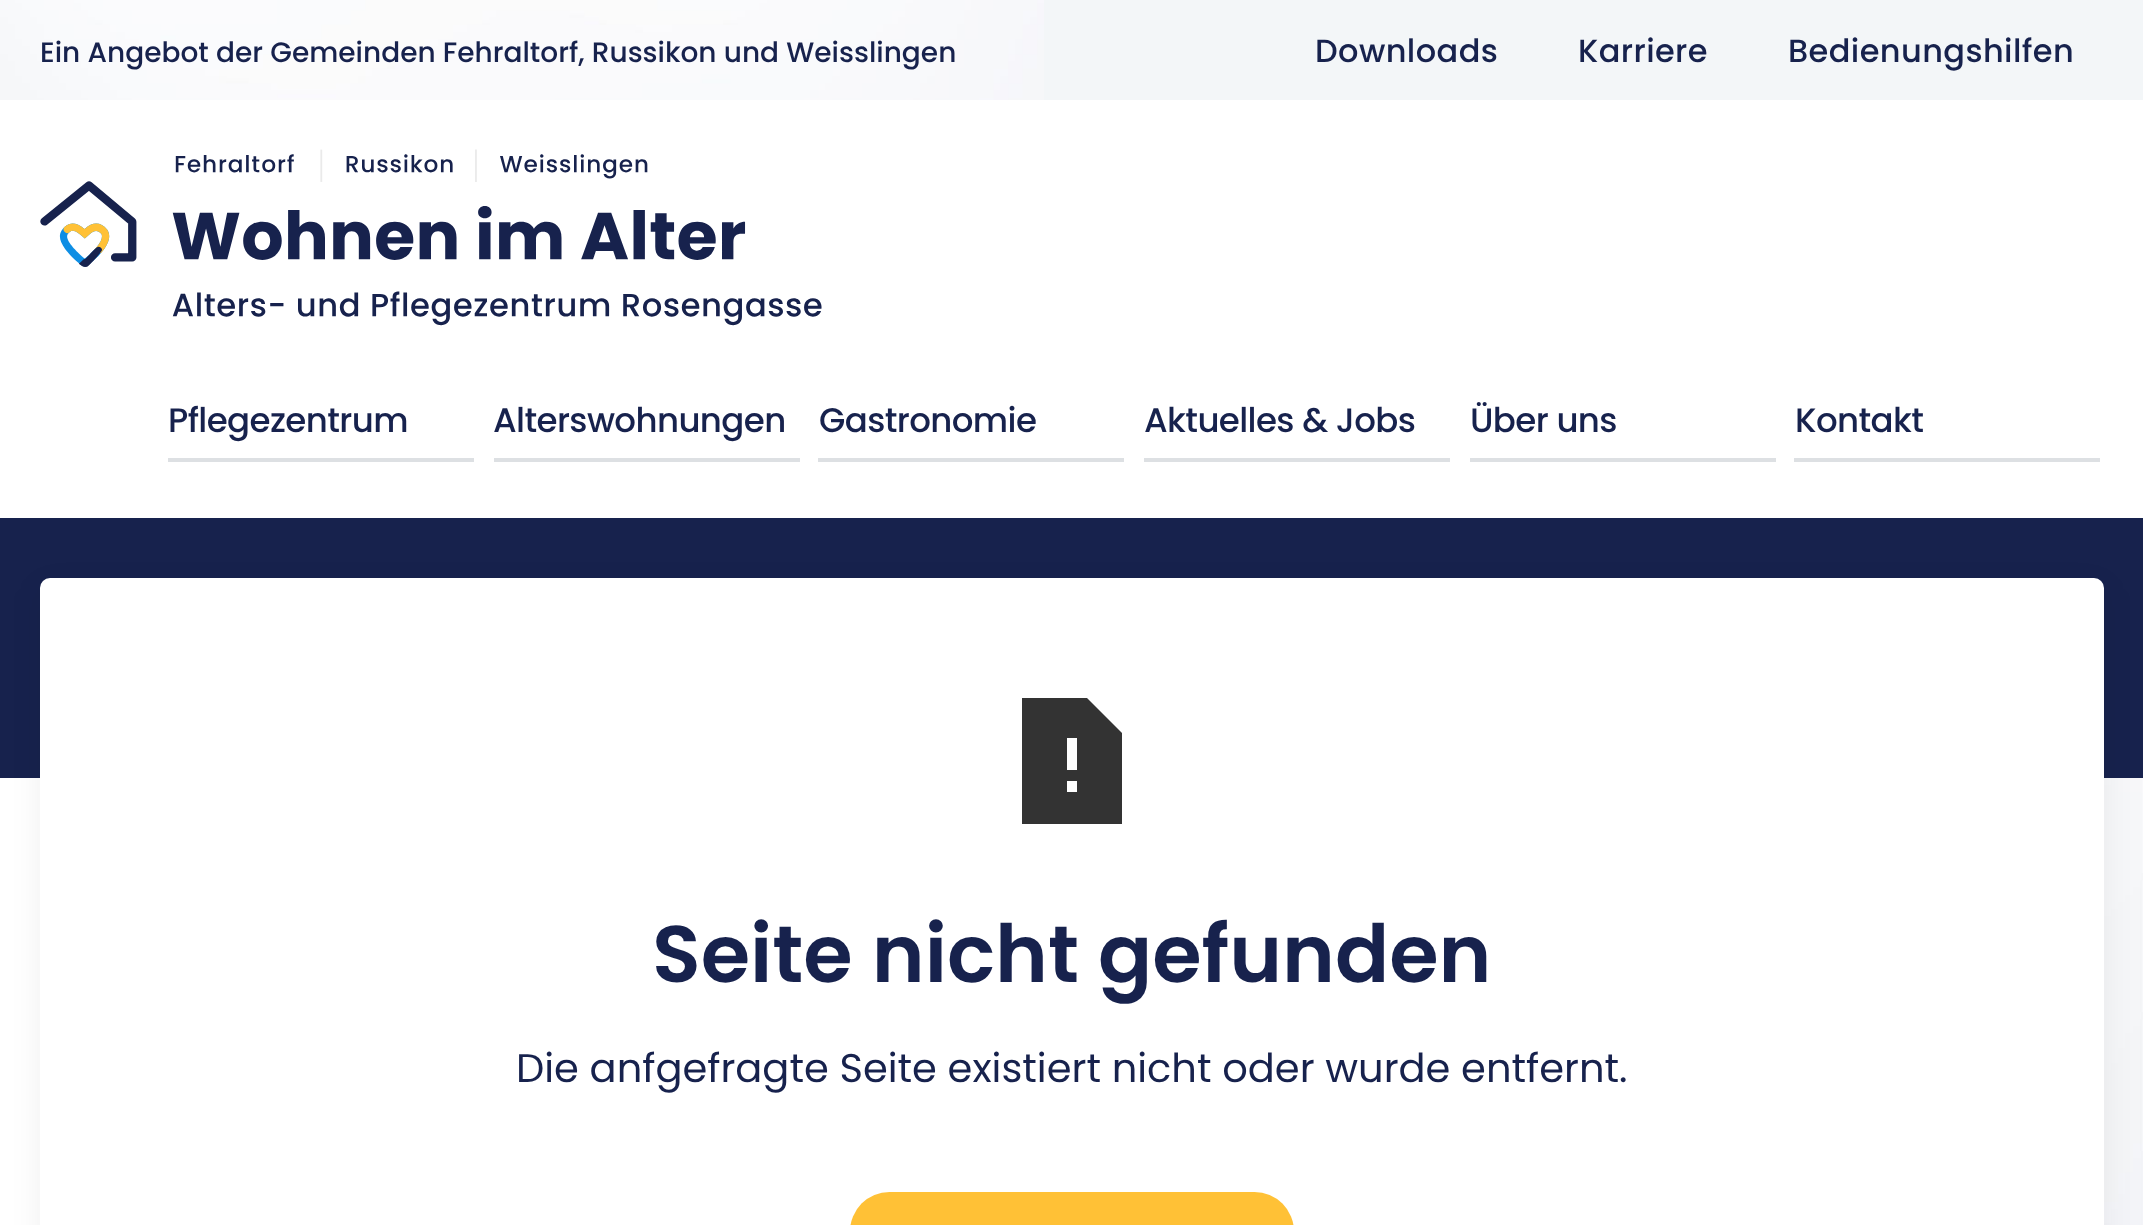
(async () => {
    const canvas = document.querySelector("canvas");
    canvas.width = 2143;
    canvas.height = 1225;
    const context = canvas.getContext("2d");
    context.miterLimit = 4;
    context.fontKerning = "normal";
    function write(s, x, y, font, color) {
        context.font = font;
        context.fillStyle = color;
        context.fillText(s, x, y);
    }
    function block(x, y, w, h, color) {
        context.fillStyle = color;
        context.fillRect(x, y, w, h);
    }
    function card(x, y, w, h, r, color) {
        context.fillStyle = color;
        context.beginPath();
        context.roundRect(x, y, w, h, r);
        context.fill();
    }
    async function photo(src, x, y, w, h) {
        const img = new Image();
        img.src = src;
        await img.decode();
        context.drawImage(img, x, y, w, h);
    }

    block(0, 0, 2143, 1225, "rgb(255, 255, 255)");
    block(1044, 0, 1099, 100, "rgb(243, 246, 248)");
    await photo("media/1.png", 0, 0, 1044, 100);
    write("Ein Angebot der Gemeinden Fehraltorf, Russikon und Weisslingen", 40, 62, "500 28px Poppins", "rgb(23, 34, 77)");
    context.letterSpacing = "0.4px";
    write("Downloads", 1315, 62, "500 32px Poppins", "rgb(23, 34, 77)");
    write("Karriere", 1578, 62, "500 32px Poppins", "rgb(23, 34, 77)");
    write("Bedienungshilfen", 1788, 62, "500 32px Poppins", "rgb(23, 34, 77)");
    await photo("media/2.png", 40, 149, 782, 177);
    block(168, 458, 306, 4, "rgb(221, 224, 227)");
    context.letterSpacing = "-0.6px";
    write("Pflegezentrum", 168, 432, "500 34px Poppins", "rgb(23, 34, 77)");
    block(494, 458, 306, 4, "rgb(221, 224, 227)");
    write("Alterswohnungen", 493, 432, "500 34px Poppins", "rgb(23, 34, 77)");
    block(818, 458, 306, 4, "rgb(221, 224, 227)");
    write("Gastronomie", 819, 432, "500 34px Poppins", "rgb(23, 34, 77)");
    block(1144, 458, 306, 4, "rgb(221, 224, 227)");
    write("Aktuelles & Jobs", 1144, 432, "500 34px Poppins", "rgb(23, 34, 77)");
    block(1470, 458, 306, 4, "rgb(221, 224, 227)");
    write("Über uns", 1470, 432, "500 34px Poppins", "rgb(23, 34, 77)");
    block(1794, 458, 306, 4, "rgb(221, 224, 227)");
    write("Kontakt", 1795, 432, "500 34px Poppins", "rgb(23, 34, 77)");
    block(0, 518, 2143, 260, "rgb(23, 34, 77)");
    await photo("media/3.png", 2104, 778, 39, 447);
    context.fillStyle = "rgba(0, 0, 0, 0.06)";
    context.filter = "blur(15px)";
    context.beginPath();
    context.roundRect(40, 588, 2064, 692, 10);
    context.fill();
    context.filter = "none";
    card(40, 578, 2064, 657, 10, "rgb(255, 255, 255)");
    context.fillStyle = "rgb(51, 51, 51)";
    context.beginPath();
    context.moveTo(1022, 698);
    context.lineTo(1087, 698);
    context.lineTo(1122, 733);
    context.lineTo(1122, 824);
    context.lineTo(1022, 824);
    context.closePath();
    context.moveTo(1067, 738);
    context.lineTo(1077, 738);
    context.lineTo(1077, 770);
    context.lineTo(1067, 770);
    context.closePath();
    context.moveTo(1067, 781);
    context.lineTo(1077, 781);
    context.lineTo(1077, 792);
    context.lineTo(1067, 792);
    context.closePath();
    context.fill("evenodd");
    context.letterSpacing = "0px";
    write("Seite nicht gefunden", 652, 982, "600 80px Poppins", "rgb(23, 34, 77)");
    write("Die anfgefragte Seite existiert nicht oder wurde entfernt.", 516, 1082, "40px Poppins", "rgb(23, 34, 77)");
    card(850, 1192, 444, 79, 46, "rgb(255, 193, 54)");
})();
